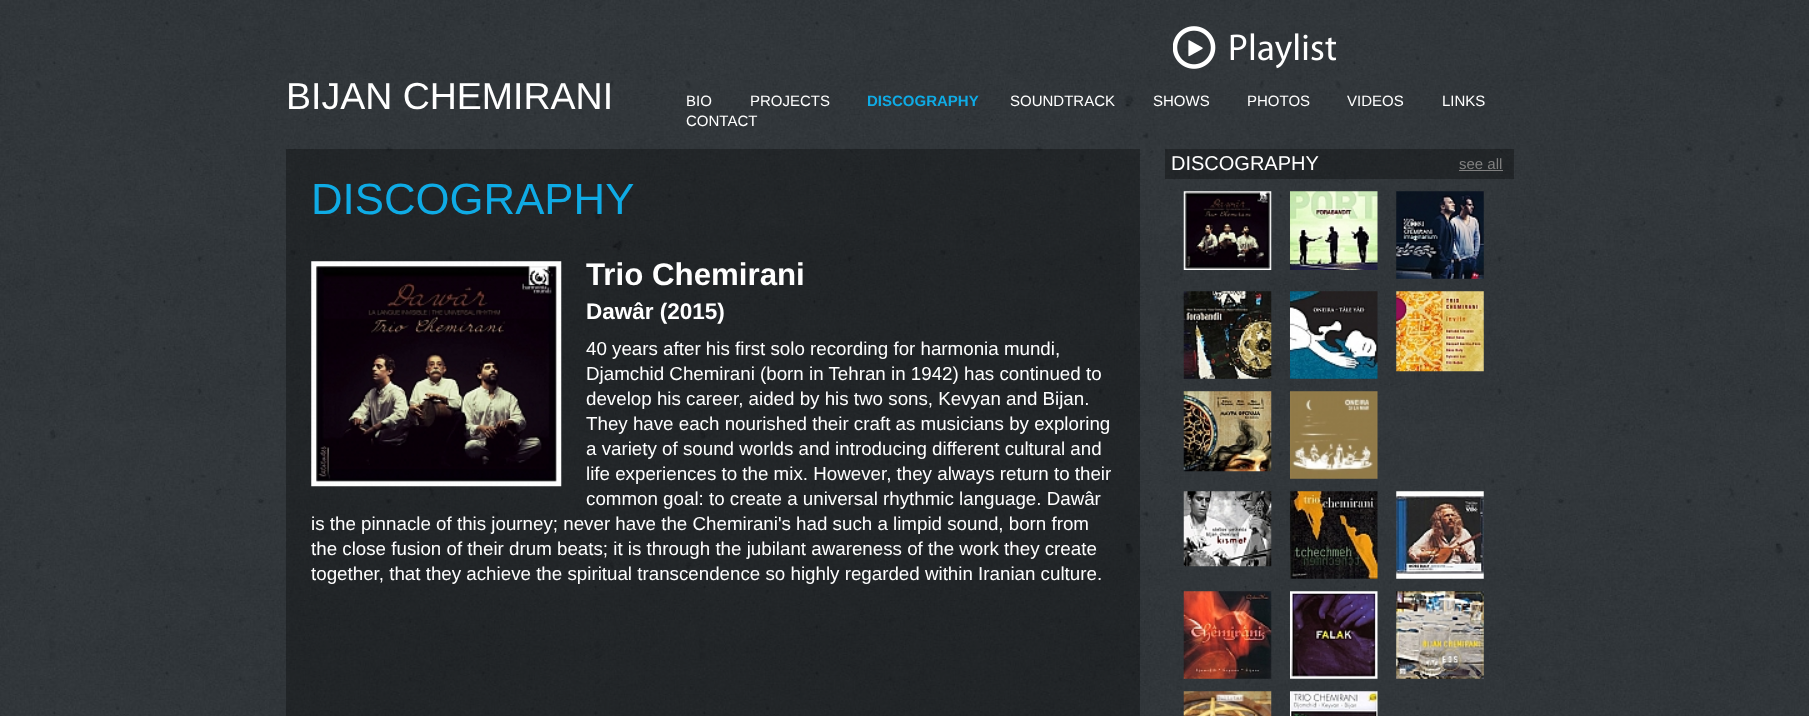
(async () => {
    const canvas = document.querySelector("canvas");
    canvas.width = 1809;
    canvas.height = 716;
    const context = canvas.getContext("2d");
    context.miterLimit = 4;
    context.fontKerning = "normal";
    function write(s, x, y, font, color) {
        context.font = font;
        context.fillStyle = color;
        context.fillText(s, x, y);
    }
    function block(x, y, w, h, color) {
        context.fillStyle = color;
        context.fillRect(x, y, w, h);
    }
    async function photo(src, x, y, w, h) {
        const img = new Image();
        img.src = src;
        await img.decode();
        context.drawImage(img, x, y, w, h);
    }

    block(0, 0, 1809, 716, "rgb(255, 255, 255)");
    await photo("media/1.png", 0, 0, 1809, 716);
    await photo("media/2.png", 1173, 26, 163, 43);
    write("BIJAN CHEMIRANI", 286, 109, "37.5px Liberation Sans", "rgb(255, 255, 255)");
    write("BIO", 686, 106, "15px Liberation Sans", "rgb(255, 255, 255)");
    write("PROJECTS", 750, 106, "15px Liberation Sans", "rgb(255, 255, 255)");
    write("DISCOGRAPHY", 867, 106, "bold 15px Liberation Sans", "rgb(15, 171, 229)");
    write("SOUNDTRACK", 1010, 106, "15px Liberation Sans", "rgb(255, 255, 255)");
    write("SHOWS", 1153, 106, "15px Liberation Sans", "rgb(255, 255, 255)");
    write("PHOTOS", 1247, 106, "15px Liberation Sans", "rgb(255, 255, 255)");
    write("VIDEOS", 1347, 106, "15px Liberation Sans", "rgb(255, 255, 255)");
    write("LINKS", 1442, 106, "15px Liberation Sans", "rgb(255, 255, 255)");
    write("CONTACT", 686, 126, "15px Liberation Sans", "rgb(255, 255, 255)");
    block(1165, 149, 349, 30, "rgba(0, 0, 0, 0.3)");
    write("DISCOGRAPHY", 1171, 170, "20px Liberation Sans", "rgb(255, 255, 255)");
    write("see all", 1459, 169, "15px Liberation Sans", "rgb(128, 128, 128)");
    block(1459, 170, 44, 1, "rgb(128, 128, 128)");
    await photo("media/3.png", 1183, 191, 89, 79);
    await photo("media/4.png", 1290, 191, 88, 79);
    await photo("media/5.png", 1396, 191, 88, 88);
    await photo("media/6.png", 1183, 291, 89, 88);
    await photo("media/7.png", 1290, 291, 88, 88);
    await photo("media/8.png", 1396, 291, 88, 81);
    await photo("media/9.png", 1183, 391, 89, 81);
    await photo("media/10.png", 1290, 391, 88, 88);
    await photo("media/11.png", 1183, 491, 89, 76);
    await photo("media/12.png", 1290, 491, 88, 88);
    await photo("media/13.png", 1396, 491, 88, 88);
    await photo("media/14.png", 1183, 591, 89, 88);
    await photo("media/15.png", 1290, 591, 88, 88);
    await photo("media/16.png", 1396, 591, 88, 88);
    await photo("media/17.png", 1183, 691, 89, 25);
    await photo("media/18.png", 1290, 691, 88, 25);
    block(286, 149, 854, 567, "rgba(0, 0, 0, 0.3)");
    write("DISCOGRAPHY", 311, 214, "43.75px Liberation Sans", "rgb(15, 171, 229)");
    await photo("media/19.png", 311, 261, 251, 226);
    write("Trio Chemirani", 586, 285, "bold 31.25px Liberation Sans", "rgb(255, 255, 255)");
    write("Dawâr (2015)", 586, 319, "bold 22.5px Liberation Sans", "rgb(255, 255, 255)");
    write("40 years after his first solo recording for harmonia mundi,", 586, 355, "18.75px Liberation Sans", "rgb(255, 255, 255)");
    write("Djamchid Chemirani (born in Tehran in 1942) has continued to", 586, 380, "18.75px Liberation Sans", "rgb(255, 255, 255)");
    write("develop his career, aided by his two sons, Kevyan and Bijan.", 586, 405, "18.75px Liberation Sans", "rgb(255, 255, 255)");
    write("They have each nourished their craft as musicians by exploring", 586, 430, "18.75px Liberation Sans", "rgb(255, 255, 255)");
    write("a variety of sound worlds and introducing different cultural and", 586, 455, "18.75px Liberation Sans", "rgb(255, 255, 255)");
    write("life experiences to the mix. However, they always return to their", 586, 480, "18.75px Liberation Sans", "rgb(255, 255, 255)");
    write("common goal: to create a universal rhythmic language. Dawâr", 586, 505, "18.75px Liberation Sans", "rgb(255, 255, 255)");
    write("is the pinnacle of this journey; never have the Chemirani's had such a limpid sound, born from", 311, 530, "18.75px Liberation Sans", "rgb(255, 255, 255)");
    write("the close fusion of their drum beats; it is through the jubilant awareness of the work they create", 311, 555, "18.75px Liberation Sans", "rgb(255, 255, 255)");
    write("together, that they achieve the spiritual transcendence so highly regarded within Iranian culture.", 311, 580, "18.75px Liberation Sans", "rgb(255, 255, 255)");
})();
